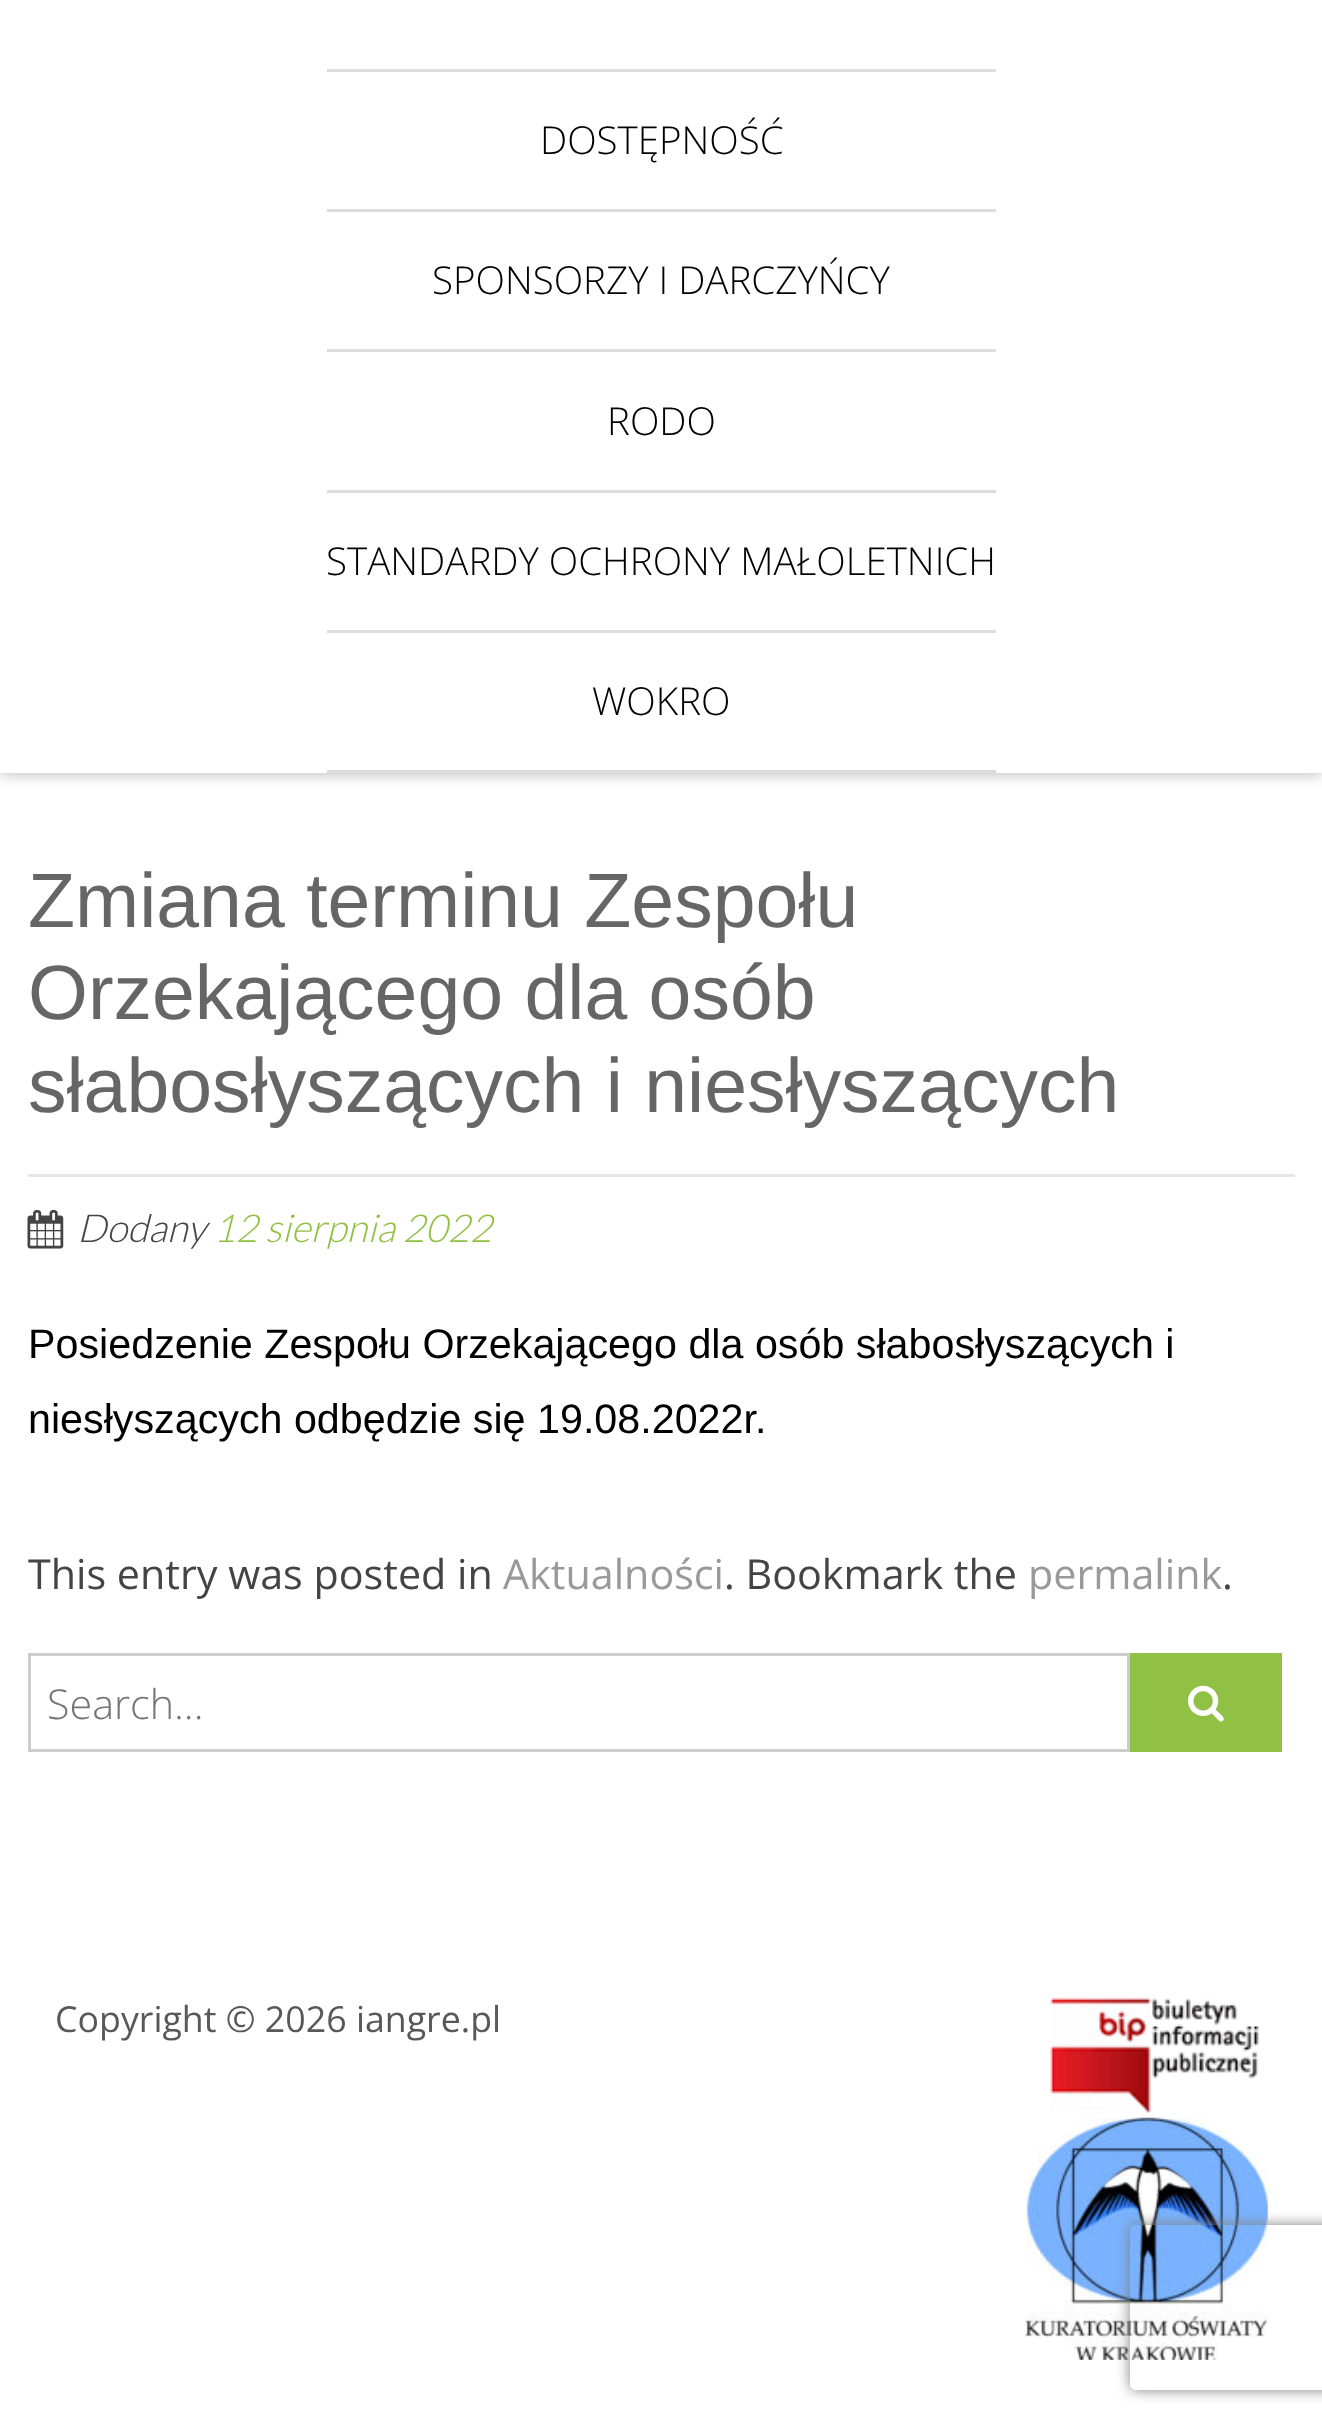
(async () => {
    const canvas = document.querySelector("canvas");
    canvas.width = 1322;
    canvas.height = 2426;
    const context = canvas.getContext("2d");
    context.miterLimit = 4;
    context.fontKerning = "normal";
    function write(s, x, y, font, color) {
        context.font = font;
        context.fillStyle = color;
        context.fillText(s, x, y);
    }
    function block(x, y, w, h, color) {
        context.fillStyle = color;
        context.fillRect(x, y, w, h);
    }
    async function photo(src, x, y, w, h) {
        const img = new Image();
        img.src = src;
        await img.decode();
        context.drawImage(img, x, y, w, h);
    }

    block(0, 0, 1322, 2426, "rgb(255, 255, 255)");
    context.fillStyle = "rgba(0, 0, 0, 0.3)";
    context.filter = "blur(8px)";
    context.beginPath();
    context.rect(0, -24, 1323, 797);
    context.fill();
    context.filter = "none";
    block(0, 0, 1322, 773, "rgb(255, 255, 255)");
    block(327, 69, 669, 3, "rgb(221, 221, 221)");
    block(327, 209, 669, 3, "rgb(221, 221, 221)");
    write("DOSTĘPNOŚĆ", 540, 154, "300 38.5px Open Sans", "rgb(0, 0, 0)");
    block(327, 349, 669, 3, "rgb(221, 221, 221)");
    write("SPONSORZY I DARCZYŃCY", 432, 294, "300 38.5px Open Sans", "rgb(0, 0, 0)");
    block(327, 490, 669, 3, "rgb(221, 221, 221)");
    write("RODO", 607, 435, "300 38.5px Open Sans", "rgb(0, 0, 0)");
    block(327, 630, 669, 3, "rgb(221, 221, 221)");
    write("STANDARDY OCHRONY MAŁOLETNICH", 326, 575, "300 38.5px Open Sans", "rgb(0, 0, 0)");
    block(327, 770, 669, 3, "rgb(221, 221, 221)");
    write("WOKRO", 592, 715, "300 38.5px Open Sans", "rgb(0, 0, 0)");
    block(28, 1174, 1267, 3, "rgb(230, 230, 230)");
    write("Zmiana terminu Zespołu", 28, 927, "77px Liberation Sans", "rgb(102, 102, 102)");
    write("Orzekającego dla osób", 28, 1019, "77px Liberation Sans", "rgb(102, 102, 102)");
    write("słabosłyszących i niesłyszących", 28, 1112, "77px Liberation Sans", "rgb(102, 102, 102)");
    await photo("media/1.png", 27, 1210, 37, 39);
    write("Dodany", 77, 1242, "italic 300 38.5px Lato", "rgb(68, 68, 68)");
    write("12 sierpnia 2022", 213, 1242, "italic 300 38.5px Lato", "rgb(144, 193, 68)");
    write("Posiedzenie Zespołu Orzekającego dla osób słabosłyszących i", 28, 1358, "41.25px Liberation Sans", "rgb(0, 0, 0)");
    write("niesłyszących odbędzie się 19.08.2022r.", 28, 1433, "41.25px Liberation Sans", "rgb(0, 0, 0)");
    write("This entry was posted in", 28, 1589, "41.25px Open Sans", "rgb(68, 68, 68)");
    write("Aktualności", 503, 1589, "41.25px Open Sans", "rgb(153, 153, 153)");
    write(". Bookmark the", 724, 1589, "41.25px Open Sans", "rgb(68, 68, 68)");
    write("permalink", 1028, 1589, "41.25px Open Sans", "rgb(153, 153, 153)");
    write(".", 1222, 1589, "41.25px Open Sans", "rgb(68, 68, 68)");
    context.strokeStyle = "rgb(204, 204, 204)";
    context.lineWidth = 3;
    context.strokeRect(29.5, 1654.5, 1099, 96);
    write("Search...", 47, 1719, "300 41.25px Open Sans", "rgb(117, 117, 117)");
    block(1130, 1653, 152, 99, "rgb(144, 193, 68)");
    await photo("media/2.png", 1188, 1685, 36, 37);
    write("Copyright © 2026 iangre.pl", 55, 2032, "35.75px Open Sans", "rgb(89, 88, 88)");
    await photo("media/3.png", 1050, 1997, 209, 116);
    await photo("media/4.png", 1025, 2117, 243, 243);
    context.save();
    context.beginPath();
    context.moveTo(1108, 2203);
    context.lineTo(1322, 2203);
    context.lineTo(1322, 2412);
    context.lineTo(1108, 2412);
    context.closePath();
    context.moveTo(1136, 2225);
    context.lineTo(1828, 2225);
    context.bezierCurveTo(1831.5, 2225, 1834, 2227.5, 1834, 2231);
    context.lineTo(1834, 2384);
    context.bezierCurveTo(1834, 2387.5, 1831.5, 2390, 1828, 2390);
    context.lineTo(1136, 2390);
    context.bezierCurveTo(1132.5, 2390, 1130, 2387.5, 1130, 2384);
    context.lineTo(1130, 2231);
    context.bezierCurveTo(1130, 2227.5, 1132.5, 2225, 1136, 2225);
    context.closePath();
    context.clip("evenodd");
    context.fillStyle = "rgb(128, 128, 128)";
    context.filter = "blur(7px)";
    context.beginPath();
    context.roundRect(1130, 2225, 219, 165, 6);
    context.fill();
    context.filter = "none";
    context.restore();
})();
